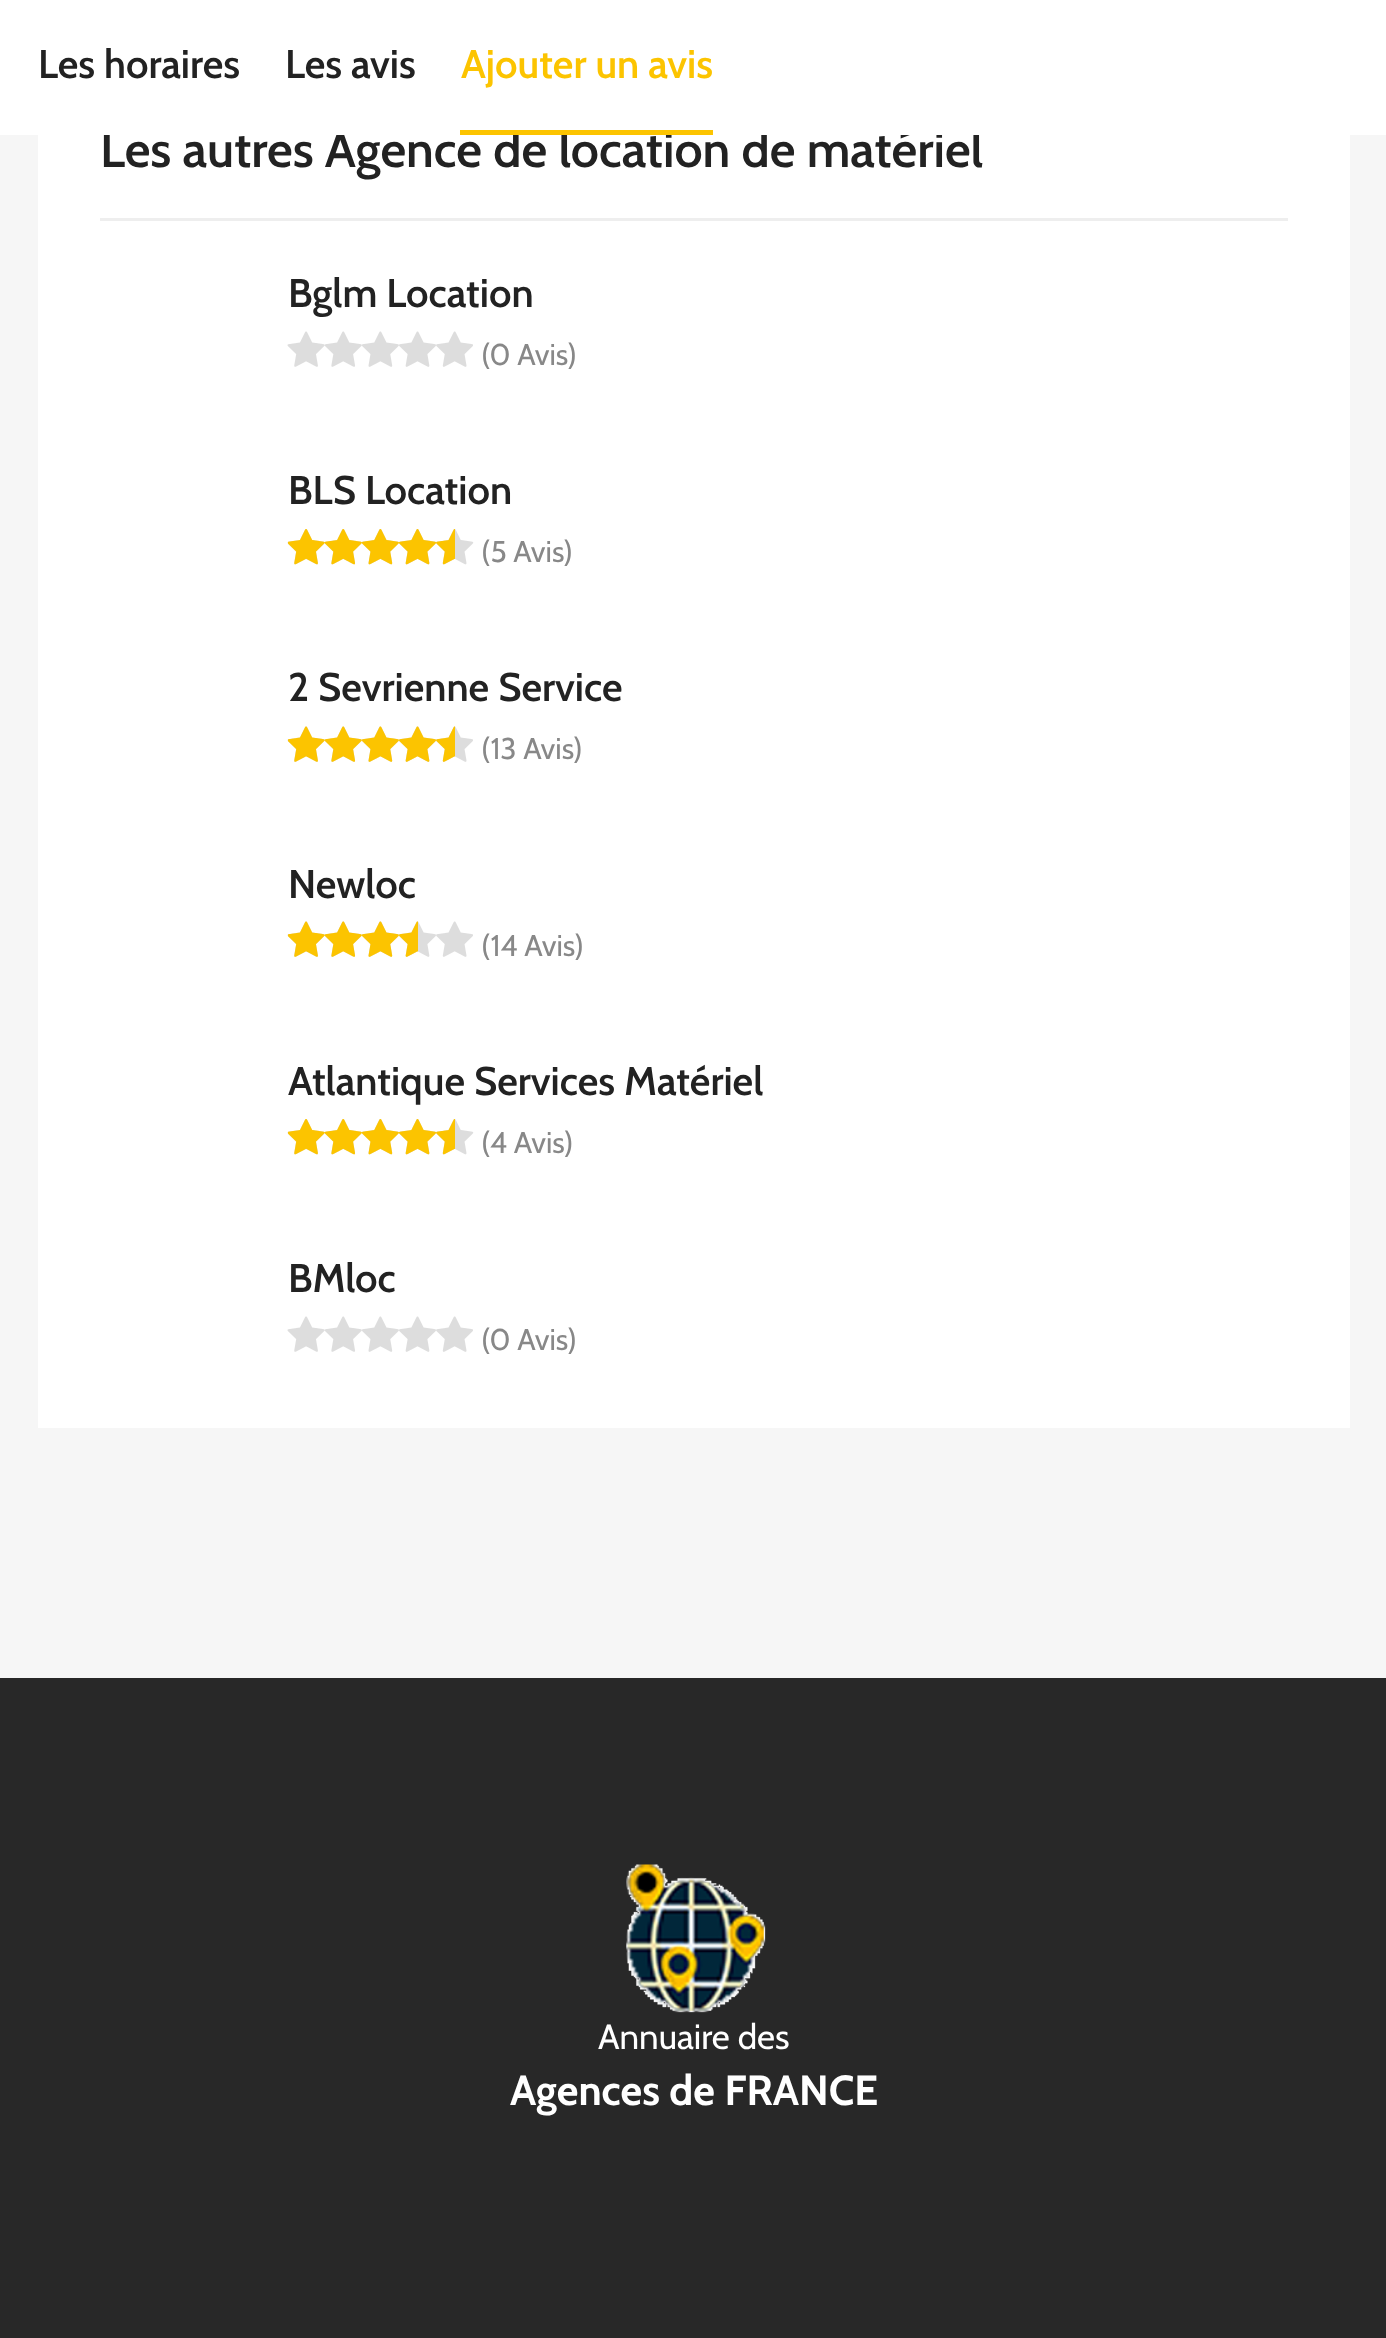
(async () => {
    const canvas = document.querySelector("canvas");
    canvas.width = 1386;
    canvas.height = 2338;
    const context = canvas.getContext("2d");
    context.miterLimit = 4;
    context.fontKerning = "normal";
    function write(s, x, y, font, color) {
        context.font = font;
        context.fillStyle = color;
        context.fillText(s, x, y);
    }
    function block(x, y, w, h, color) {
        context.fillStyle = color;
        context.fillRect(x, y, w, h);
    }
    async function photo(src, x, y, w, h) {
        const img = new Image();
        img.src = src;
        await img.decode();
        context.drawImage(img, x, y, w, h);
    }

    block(0, 0, 1386, 2338, "rgb(246, 246, 246)");
    block(38, 135, 1312, 1293, "rgb(255, 255, 255)");
    write("Les autres Agence de location de matériel", 100, 167, "600 50px Cabin", "rgb(34, 34, 34)");
    block(0, 0, 1386, 135, "rgb(255, 255, 255)");
    write("Les horaires", 38, 78, "600 40px Cabin", "rgb(34, 34, 34)");
    write("Les avis", 285, 78, "600 40px Cabin", "rgb(34, 34, 34)");
    block(460, 130, 253, 5, "rgb(252, 196, 0)");
    write("Ajouter un avis", 461, 78, "600 40px Cabin", "rgb(252, 196, 0)");
    block(100, 218, 1188, 3, "rgb(238, 238, 238)");
    write("Bglm Location", 288, 307, "600 40px Cabin", "rgb(34, 34, 34)");
    await photo("media/1.png", 287, 331, 186, 36);
    write("(0 Avis)", 481, 365, "30px Cabin", "rgb(136, 136, 136)");
    write("BLS Location", 288, 504, "600 40px Cabin", "rgb(34, 34, 34)");
    await photo("media/2.png", 287, 529, 187, 36);
    await photo("media/3.png", 288, 529, 167, 36);
    write("(5 Avis)", 481, 562, "30px Cabin", "rgb(136, 136, 136)");
    write("2 Sevrienne Service", 288, 701, "600 40px Cabin", "rgb(34, 34, 34)");
    await photo("media/1.png", 287, 726, 186, 36);
    await photo("media/4.png", 288, 726, 167, 36);
    write("(13 Avis)", 481, 759, "30px Cabin", "rgb(136, 136, 136)");
    write("Newloc", 288, 898, "600 40px Cabin", "rgb(34, 34, 34)");
    await photo("media/1.png", 287, 921, 186, 36);
    await photo("media/5.png", 288, 921, 130, 36);
    write("(14 Avis)", 481, 956, "30px Cabin", "rgb(136, 136, 136)");
    write("Atlantique Services Matériel", 288, 1095, "600 40px Cabin", "rgb(34, 34, 34)");
    await photo("media/2.png", 287, 1119, 187, 36);
    await photo("media/3.png", 288, 1119, 167, 36);
    write("(4 Avis)", 481, 1153, "30px Cabin", "rgb(136, 136, 136)");
    write("BMloc", 288, 1292, "600 40px Cabin", "rgb(34, 34, 34)");
    await photo("media/1.png", 287, 1316, 186, 36);
    write("(0 Avis)", 481, 1350, "30px Cabin", "rgb(136, 136, 136)");
    block(0, 1678, 1386, 660, "rgb(40, 40, 40)");
    await photo("media/6.png", 626, 1864, 140, 149);
    write("Annuaire des", 598, 2049, "35px Cabin", "rgb(255, 255, 255)");
    write("Agences de FRANCE", 510, 2105, "bold 42px Cabin", "rgb(255, 255, 255)");
})();
